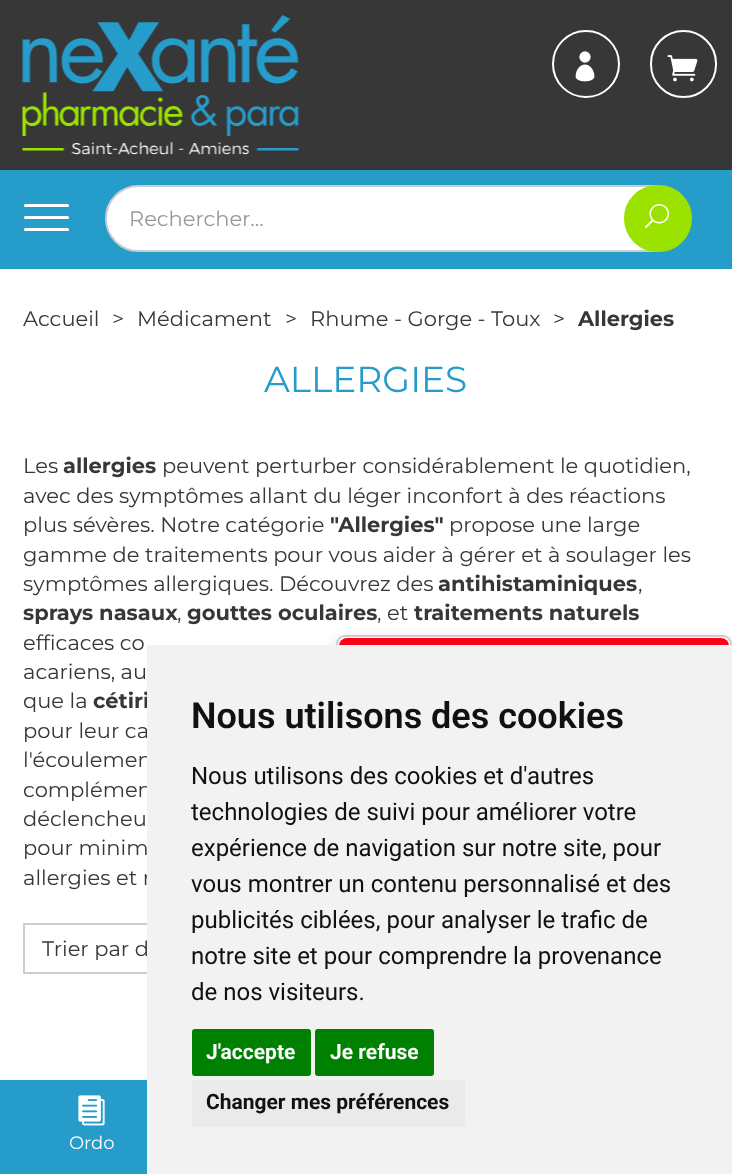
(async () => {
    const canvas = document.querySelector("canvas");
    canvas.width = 732;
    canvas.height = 1174;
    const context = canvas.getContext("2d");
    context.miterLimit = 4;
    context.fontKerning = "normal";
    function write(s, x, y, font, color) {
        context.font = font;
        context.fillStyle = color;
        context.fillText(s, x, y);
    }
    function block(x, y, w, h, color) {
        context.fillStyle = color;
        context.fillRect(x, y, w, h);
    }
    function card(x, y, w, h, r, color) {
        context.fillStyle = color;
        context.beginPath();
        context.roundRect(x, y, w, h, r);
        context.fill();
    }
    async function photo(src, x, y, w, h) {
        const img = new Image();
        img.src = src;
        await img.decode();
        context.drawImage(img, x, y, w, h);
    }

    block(0, 0, 732, 1174, "rgb(255, 255, 255)");
    block(0, 170, 732, 99, "rgb(38, 156, 203)");
    block(0, 0, 732, 170, "rgb(55, 55, 55)");
    await photo("media/1.png", 22, 15, 277, 140);
    context.beginPath();
    context.arc(586, 64, 33, 0, Math.PI * 2);
    context.strokeStyle = "rgb(255, 255, 255)";
    context.lineWidth = 2;
    context.stroke();
    await photo("media/2.png", 575, 51, 20, 31);
    context.beginPath();
    context.roundRect(651, 31, 65, 66, 32.5);
    context.stroke();
    await photo("media/3.png", 667, 55, 31, 27);
    card(24, 204, 45, 3, 1.5, "rgb(255, 255, 255)");
    card(24, 216, 45, 3, 1.5, "rgb(255, 255, 255)");
    card(24, 228, 45, 3, 1.5, "rgb(255, 255, 255)");
    context.beginPath();
    context.roundRect(106, 186, 552, 65, [32.5, 0, 0, 32.5]);
    context.fill();
    context.strokeStyle = "rgb(204, 204, 204)";
    context.stroke();
    write("Rechercher...", 129, 226, "21px Montserrat", "rgb(153, 153, 153)");
    context.fillStyle = "rgb(155, 226, 0)";
    context.beginPath();
    context.roundRect(625, 186, 66, 65, 32.5);
    context.fill();
    context.strokeStyle = "rgb(155, 226, 0)";
    context.stroke();
    await photo("media/4.png", 644, 204, 25, 24);
    write("Accueil", 23, 326, "21px Montserrat", "rgb(55, 55, 55)");
    write(">", 112, 326, "21px Montserrat", "rgb(55, 55, 55)");
    write("Médicament", 137, 326, "21px Montserrat", "rgb(55, 55, 55)");
    write(">", 285, 326, "21px Montserrat", "rgb(55, 55, 55)");
    write("Rhume - Gorge - Toux", 310, 326, "21px Montserrat", "rgb(55, 55, 55)");
    write(">", 553, 326, "21px Montserrat", "rgb(55, 55, 55)");
    write("Allergies", 578, 326, "bold 21px Montserrat", "rgb(55, 55, 55)");
    write("ALLERGIES", 264, 392, "36px Montserrat", "rgb(38, 156, 203)");
    write("Les", 23, 473, "21px Montserrat", "rgb(55, 55, 55)");
    write("allergies", 63, 473, "bold 21px Montserrat", "rgb(55, 55, 55)");
    write("peuvent perturber considérablement le quotidien,", 162, 473, "21px Montserrat", "rgb(55, 55, 55)");
    write("avec des symptômes allant du léger inconfort à des réactions", 23, 503, "21px Montserrat", "rgb(55, 55, 55)");
    write("plus sévères. Notre catégorie", 23, 532, "21px Montserrat", "rgb(55, 55, 55)");
    write("\"Allergies\"", 330, 532, "bold 21px Montserrat", "rgb(55, 55, 55)");
    write("propose une large", 449, 532, "21px Montserrat", "rgb(55, 55, 55)");
    write("gamme de traitements pour vous aider à gérer et à soulager les", 23, 562, "21px Montserrat", "rgb(55, 55, 55)");
    write("symptômes allergiques. Découvrez des", 23, 591, "21px Montserrat", "rgb(55, 55, 55)");
    write("antihistaminiques", 438, 591, "bold 21px Montserrat", "rgb(55, 55, 55)");
    write(",", 638, 591, "21px Montserrat", "rgb(55, 55, 55)");
    write("sprays nasaux", 23, 620, "bold 21px Montserrat", "rgb(55, 55, 55)");
    write(",", 177, 620, "21px Montserrat", "rgb(55, 55, 55)");
    write("gouttes oculaires", 187, 620, "bold 21px Montserrat", "rgb(55, 55, 55)");
    write(", et", 377, 620, "21px Montserrat", "rgb(55, 55, 55)");
    write("traitements naturels", 414, 620, "bold 21px Montserrat", "rgb(55, 55, 55)");
    write("efficaces co", 23, 650, "21px Montserrat", "rgb(55, 55, 55)");
    write("acariens, au", 23, 679, "21px Montserrat", "rgb(55, 55, 55)");
    write("que la", 23, 708, "21px Montserrat", "rgb(55, 55, 55)");
    write("cétiri", 93, 708, "bold 21px Montserrat", "rgb(55, 55, 55)");
    write("pour leur ca", 23, 738, "21px Montserrat", "rgb(55, 55, 55)");
    write("l'écoulemen", 23, 767, "21px Montserrat", "rgb(55, 55, 55)");
    write("complémen", 23, 797, "21px Montserrat", "rgb(55, 55, 55)");
    write("déclencheu", 23, 826, "21px Montserrat", "rgb(55, 55, 55)");
    write("pour minim", 23, 855, "21px Montserrat", "rgb(55, 55, 55)");
    write("allergies et r", 23, 885, "21px Montserrat", "rgb(55, 55, 55)");
    context.strokeStyle = "rgb(203, 207, 204)";
    context.strokeRect(24, 924, 319, 49);
    write("Trier par d", 42, 956, "21px Montserrat", "rgb(55, 55, 55)");
    context.save();
    context.beginPath();
    context.moveTo(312, 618);
    context.lineTo(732, 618);
    context.lineTo(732, 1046);
    context.lineTo(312, 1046);
    context.closePath();
    context.moveTo(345, 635);
    context.lineTo(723, 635);
    context.bezierCurveTo(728, 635, 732, 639, 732, 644);
    context.lineTo(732, 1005);
    context.bezierCurveTo(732, 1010, 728, 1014, 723, 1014);
    context.lineTo(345, 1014);
    context.bezierCurveTo(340, 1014, 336, 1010, 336, 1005);
    context.lineTo(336, 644);
    context.bezierCurveTo(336, 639, 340, 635, 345, 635);
    context.closePath();
    context.clip("evenodd");
    context.fillStyle = "rgba(0, 0, 0, 0.2)";
    context.filter = "blur(7.5px)";
    context.beginPath();
    context.roundRect(336, 642, 396, 380, 9);
    context.fill();
    context.filter = "none";
    context.restore();
    card(338, 636, 393, 377, 8, "rgb(255, 255, 255)");
    context.beginPath();
    context.roundRect(337, 636, 394, 377, 8);
    context.strokeStyle = "rgba(0, 0, 0, 0.2)";
    context.stroke();
    context.fillStyle = "rgb(254, 0, 25)";
    context.beginPath();
    context.roundRect(339, 638, 390, 48, [8, 8, 0, 0]);
    context.fill();
    block(147, 645, 585, 529, "rgb(242, 242, 242)");
    write("Nous utilisons des cookies", 191, 728, "600 36px Roboto", "rgb(17, 17, 17)");
    write("Nous utilisons des cookies et d'autres", 191, 784, "24px Roboto", "rgb(17, 17, 17)");
    write("technologies de suivi pour améliorer votre", 191, 820, "24px Roboto", "rgb(17, 17, 17)");
    write("expérience de navigation sur notre site, pour", 191, 856, "24px Roboto", "rgb(17, 17, 17)");
    write("vous montrer un contenu personnalisé et des", 191, 892, "24px Roboto", "rgb(17, 17, 17)");
    write("publicités ciblées, pour analyser le trafic de", 191, 928, "24px Roboto", "rgb(17, 17, 17)");
    write("notre site et pour comprendre la provenance", 191, 964, "24px Roboto", "rgb(17, 17, 17)");
    write("de nos visiteurs.", 191, 1000, "24px Roboto", "rgb(17, 17, 17)");
    card(192, 1029, 119, 47, 3, "rgb(0, 128, 0)");
    write("J'accepte", 206, 1059, "bold 21px Roboto", "rgb(255, 255, 255)");
    card(315, 1029, 119, 47, 3, "rgb(0, 128, 0)");
    write("Je refuse", 330, 1059, "bold 21px Roboto", "rgb(255, 255, 255)");
    card(192, 1080, 273, 47, 3, "rgb(234, 234, 234)");
    write("Changer mes préférences", 206, 1109, "bold 21px Roboto", "rgb(17, 17, 17)");
    block(0, 1080, 147, 94, "rgb(38, 156, 203)");
    await photo("media/5.png", 78, 1095, 27, 31);
    write("Ordo", 69, 1149, "18px Montserrat", "rgb(255, 255, 255)");
})();
